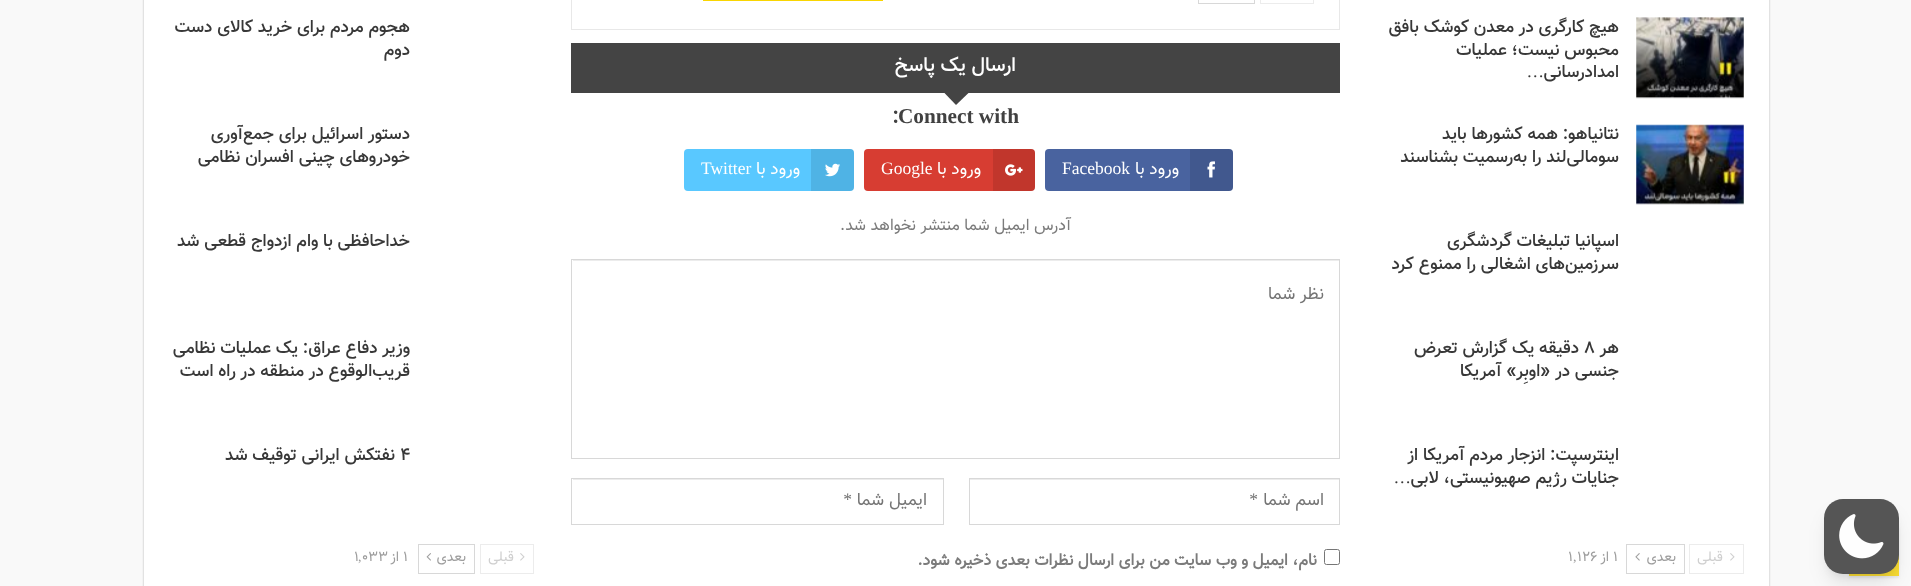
(async () => {
    const canvas = document.querySelector("canvas");
    canvas.width = 1911;
    canvas.height = 586;
    const context = canvas.getContext("2d");
    context.miterLimit = 4;
    context.fontKerning = "normal";
    function write(s, x, y, font, color) {
        context.font = font;
        context.fillStyle = color;
        context.fillText(s, x, y);
    }
    function block(x, y, w, h, color) {
        context.fillStyle = color;
        context.fillRect(x, y, w, h);
    }
    function card(x, y, w, h, r, color) {
        context.fillStyle = color;
        context.beginPath();
        context.roundRect(x, y, w, h, r);
        context.fill();
    }
    async function photo(src, x, y, w, h) {
        const img = new Image();
        img.src = src;
        await img.decode();
        context.drawImage(img, x, y, w, h);
    }

    block(0, 0, 1911, 586, "rgb(249, 249, 249)");
    context.fillStyle = "rgba(50, 50, 50, 0.09)";
    context.filter = "blur(1px)";
    context.beginPath();
    context.rect(1849, 528, 50, 50);
    context.fill();
    context.filter = "none";
    block(1849, 555, 50, 21, "rgb(249, 220, 51)");
    context.fillStyle = "rgba(0, 0, 0, 0.1)";
    context.filter = "blur(4px)";
    context.beginPath();
    context.roundRect(1829, 509, 65, 65, 14);
    context.fill();
    context.filter = "none";
    context.filter = "blur(9.5px)";
    context.beginPath();
    context.roundRect(1828, 515, 67, 68, 15);
    context.fill();
    context.filter = "none";
    card(1824, 499, 75, 75, 19, "rgb(85, 85, 85)");
    await photo("media/1.png", 1839, 514, 45, 45);
    context.fillStyle = "rgba(0, 0, 0, 0.27)";
    context.filter = "blur(1px)";
    context.beginPath();
    context.rect(144, -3, 1625, 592);
    context.fill();
    context.filter = "none";
    block(144, 0, 1625, 586, "rgb(255, 255, 255)");
    context.strokeStyle = "rgb(232, 232, 232)";
    context.strokeRect(571.5, -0.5, 768, 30);
    block(703, 0, 180, 1, "rgb(249, 213, 1)");
    await photo("media/2.png", 1636, 17, 108, 82);
    context.direction = "rtl";
    write("هیچ کارگری در معدن کوشک بافق", 1619, 32, "500 17.5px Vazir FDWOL", "rgb(56, 56, 56)");
    write("محبوس نیست؛ عملیات", 1619, 55, "500 17.5px Vazir FDWOL", "rgb(56, 56, 56)");
    write("امدادرسانی", 1619, 77, "500 17.5px Vazir FDWOL", "rgb(56, 56, 56)");
    write("…", 1544, 77, "17.5px Liberation Serif", "rgb(56, 56, 56)");
    await photo("media/3.png", 1636, 124, 108, 81);
    write("نتانیاهو: همه کشورها باید", 1619, 139, "500 17.5px Vazir FDWOL", "rgb(56, 56, 56)");
    write("سومالی‌لند را به‌رسمیت بشناسند", 1619, 162, "500 17.5px Vazir FDWOL", "rgb(56, 56, 56)");
    write("اسپانیا تبلیغات گردشگری", 1619, 246, "500 17.5px Vazir FDWOL", "rgb(56, 56, 56)");
    write("سرزمین‌های اشغالی را ممنوع کرد", 1619, 269, "500 17.5px Vazir FDWOL", "rgb(56, 56, 56)");
    write("هر", 1619, 353, "500 17.5px Vazir FDWOL", "rgb(56, 56, 56)");
    context.direction = "ltr";
    write("۸", 1584, 353, "500 17.5px Vazir FDWOL", "rgb(56, 56, 56)");
    context.direction = "rtl";
    write("دقیقه یک گزارش تعرض", 1579, 353, "500 17.5px Vazir FDWOL", "rgb(56, 56, 56)");
    write("جنسی در «اوبِر» آمریکا", 1619, 376, "500 17.5px Vazir FDWOL", "rgb(56, 56, 56)");
    write("اینترسپت: انزجار مردم آمریکا از", 1619, 460, "500 17.5px Vazir FDWOL", "rgb(56, 56, 56)");
    write("جنایات رژیم صهیونیستی، لابی", 1619, 483, "500 17.5px Vazir FDWOL", "rgb(56, 56, 56)");
    write("…", 1411, 483, "17.5px Liberation Serif", "rgb(56, 56, 56)");
    context.strokeStyle = "rgb(236, 236, 236)";
    context.strokeRect(1689.5, 544.5, 54, 29);
    await photo("media/4.png", 1730, 553, 5, 8);
    write("قبلی", 1723, 561, "14px Vazir FDWOL", "rgb(207, 207, 207)");
    context.strokeStyle = "rgb(216, 216, 216)";
    context.strokeRect(1626.5, 544.5, 58, 29);
    write("بعدی", 1676, 561, "14px Vazir FDWOL", "rgb(158, 158, 158)");
    await photo("media/5.png", 1635, 553, 5, 8);
    context.direction = "ltr";
    write("1", 1613, 561, "14px Vazir FDWOL", "rgb(158, 158, 158)");
    context.direction = "rtl";
    write("از", 1609, 561, "14px Vazir FDWOL", "rgb(158, 158, 158)");
    context.direction = "ltr";
    write("126", 1577, 561, "14px Vazir FDWOL", "rgb(158, 158, 158)");
    write(",", 1573, 561, "14px Liberation Serif", "rgb(158, 158, 158)");
    write("1", 1568, 561, "14px Vazir FDWOL", "rgb(158, 158, 158)");
    context.strokeStyle = "rgb(236, 236, 236)";
    context.strokeRect(1260.5, -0.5, 53, 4);
    context.strokeStyle = "rgb(216, 216, 216)";
    context.strokeRect(1198.5, -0.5, 56, 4);
    context.fillStyle = "rgb(68, 68, 68)";
    context.beginPath();
    context.moveTo(944, 92.5);
    context.lineTo(969, 92.5);
    context.lineTo(956, 105);
    context.closePath();
    context.fill();
    block(571, 43, 769, 50, "rgb(68, 68, 68)");
    context.direction = "rtl";
    write("ارسال یک پاسخ", 1016, 71, "500 20px Vazir FDWOL", "rgb(255, 255, 255)");
    context.direction = "ltr";
    write("Connect with", 898, 123, "bold 21.25px Liberation Serif", "rgb(65, 65, 65)");
    write(":", 892, 123, "bold 21.25px Vazir FDWOL", "rgb(65, 65, 65)");
    card(1045, 149, 188, 42, 4, "rgb(73, 99, 159)");
    context.fillStyle = "rgba(0, 0, 0, 0.1)";
    context.beginPath();
    context.roundRect(1190, 149, 43, 42, [0, 4, 4, 0]);
    context.fill();
    await photo("media/6.png", 1207, 161, 8, 17);
    context.direction = "rtl";
    write("ورود با", 1179, 174, "17.5px Vazir FDWOL", "rgb(255, 255, 255)");
    context.direction = "ltr";
    write("Facebook", 1062, 174, "17.5px Liberation Serif", "rgb(255, 255, 255)");
    card(864, 149, 171, 42, 4, "rgb(215, 61, 50)");
    context.fillStyle = "rgba(0, 0, 0, 0.1)";
    context.beginPath();
    context.roundRect(993, 149, 42, 42, [0, 4, 4, 0]);
    context.fill();
    await photo("media/7.png", 1005, 164, 18, 12);
    context.direction = "rtl";
    write("ورود با", 981, 174, "17.5px Vazir FDWOL", "rgb(255, 255, 255)");
    context.direction = "ltr";
    write("Google", 881, 174, "17.5px Liberation Serif", "rgb(255, 255, 255)");
    card(684, 149, 170, 42, 4, "rgb(89, 200, 255)");
    context.fillStyle = "rgba(0, 0, 0, 0.1)";
    context.beginPath();
    context.roundRect(811, 149, 43, 42, [0, 4, 4, 0]);
    context.fill();
    await photo("media/8.png", 825, 163, 15, 14);
    context.direction = "rtl";
    write("ورود با", 800, 174, "17.5px Vazir FDWOL", "rgb(255, 255, 255)");
    context.direction = "ltr";
    write("Twitter", 701, 174, "17.5px Liberation Serif", "rgb(255, 255, 255)");
    context.direction = "rtl";
    write("آدرس ایمیل شما منتشر نخواهد شد.", 1071, 230, "16.25px Vazir FDWOL", "rgb(123, 123, 123)");
    block(573, 260, 766, 1, "rgb(236, 236, 236)");
    context.strokeRect(571.5, 259.5, 768, 199);
    write("نظر شما", 1324, 299, "17.5px Vazir FDWOL", "rgb(117, 117, 117)");
    block(970, 479, 369, 1, "rgb(236, 236, 236)");
    context.strokeRect(969.5, 478.5, 370, 46);
    write("اسم شما", 1324, 505, "17.5px Vazir FDWOL", "rgb(117, 117, 117)");
    write("*", 1258, 505, "17.5px Liberation Serif", "rgb(117, 117, 117)");
    block(573, 479, 370, 1, "rgb(236, 236, 236)");
    context.strokeRect(571.5, 478.5, 372, 46);
    write("ایمیل شما", 927, 505, "17.5px Vazir FDWOL", "rgb(117, 117, 117)");
    write("*", 852, 505, "17.5px Liberation Serif", "rgb(117, 117, 117)");
    context.beginPath();
    context.roundRect(1324.5, 549.5, 15, 15, 2);
    context.strokeStyle = "rgb(118, 118, 118)";
    context.stroke();
    write("نام، ایمیل و وب سایت من برای ارسال نظرات بعدی ذخیره شود.", 1317, 565, "bold 16.25px Vazir FDWOL", "rgb(123, 123, 123)");
    write("هجوم مردم برای خرید کالای دست", 410, 32, "500 17.5px Vazir FDWOL", "rgb(56, 56, 56)");
    write("دوم", 410, 55, "500 17.5px Vazir FDWOL", "rgb(56, 56, 56)");
    write("دستور اسرائیل برای جمع‌آوری", 410, 139, "500 17.5px Vazir FDWOL", "rgb(56, 56, 56)");
    write("خودروهای چینی افسران نظامی", 410, 162, "500 17.5px Vazir FDWOL", "rgb(56, 56, 56)");
    write("خداحافظی با وام ازدواج قطعی شد", 410, 246, "500 17.5px Vazir FDWOL", "rgb(56, 56, 56)");
    write("وزیر دفاع عراق: یک عملیات نظامی", 410, 353, "500 17.5px Vazir FDWOL", "rgb(56, 56, 56)");
    write("قریب‌الوقوع در منطقه در راه است", 410, 376, "500 17.5px Vazir FDWOL", "rgb(56, 56, 56)");
    context.direction = "ltr";
    write("۴", 400, 460, "500 17.5px Vazir FDWOL", "rgb(56, 56, 56)");
    context.direction = "rtl";
    write("نفتکش ایرانی توقیف شد", 395, 460, "500 17.5px Vazir FDWOL", "rgb(56, 56, 56)");
    context.strokeStyle = "rgb(236, 236, 236)";
    context.strokeRect(480.5, 544.5, 53, 29);
    await photo("media/4.png", 520, 553, 5, 8);
    write("قبلی", 514, 561, "14px Vazir FDWOL", "rgb(207, 207, 207)");
    context.strokeStyle = "rgb(216, 216, 216)";
    context.strokeRect(418.5, 544.5, 56, 29);
    write("بعدی", 466, 561, "14px Vazir FDWOL", "rgb(158, 158, 158)");
    await photo("media/9.png", 426, 553, 5, 8);
    context.direction = "ltr";
    write("1", 403, 561, "14px Vazir FDWOL", "rgb(158, 158, 158)");
    context.direction = "rtl";
    write("از", 399, 561, "14px Vazir FDWOL", "rgb(158, 158, 158)");
    context.direction = "ltr";
    write("033", 362, 561, "14px Vazir FDWOL", "rgb(158, 158, 158)");
    write(",", 358, 561, "14px Liberation Serif", "rgb(158, 158, 158)");
    write("1", 354, 561, "14px Vazir FDWOL", "rgb(158, 158, 158)");
})();
